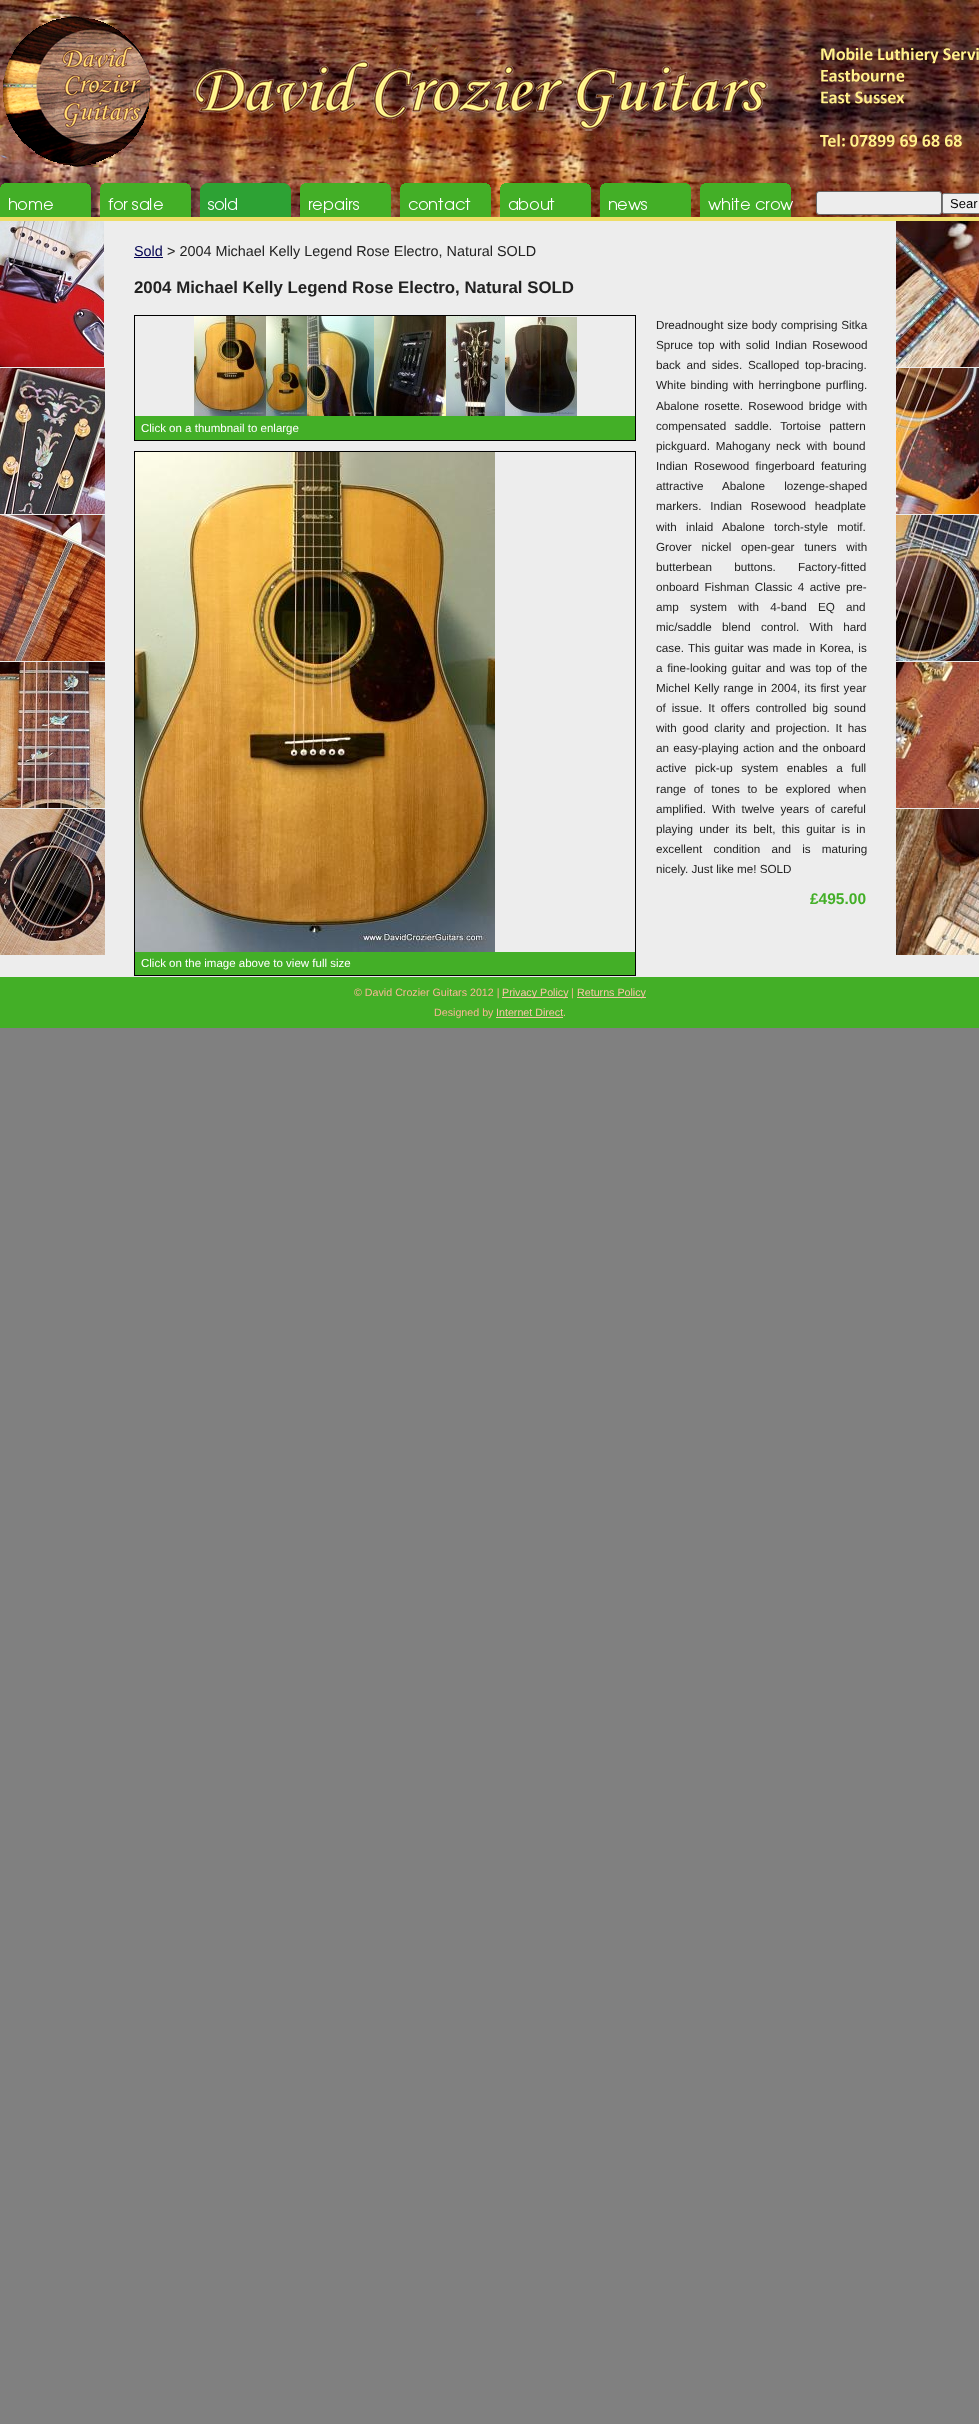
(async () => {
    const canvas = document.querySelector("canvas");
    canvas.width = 979;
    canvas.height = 2424;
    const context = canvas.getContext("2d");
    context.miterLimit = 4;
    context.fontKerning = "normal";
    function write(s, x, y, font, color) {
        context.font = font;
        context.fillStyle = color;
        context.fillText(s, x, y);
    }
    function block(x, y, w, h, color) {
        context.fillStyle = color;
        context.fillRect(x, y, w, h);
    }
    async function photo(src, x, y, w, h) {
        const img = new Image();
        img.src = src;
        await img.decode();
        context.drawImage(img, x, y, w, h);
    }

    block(0, 0, 979, 2424, "rgb(128, 128, 128)");
    await photo("media/1.png", 0, 0, 979, 217);
    await photo("media/2.png", 0, 183, 91, 34);
    await photo("media/3.png", 100, 183, 91, 34);
    await photo("media/4.png", 200, 183, 91, 34);
    await photo("media/5.png", 300, 183, 91, 34);
    await photo("media/6.png", 400, 183, 91, 34);
    await photo("media/7.png", 500, 183, 91, 34);
    await photo("media/8.png", 600, 183, 91, 34);
    await photo("media/9.png", 700, 183, 93, 34);
    await photo("media/10.png", 0, 16, 979, 151);
    context.fillStyle = "rgb(237, 237, 237)";
    context.beginPath();
    context.roundRect(816.5, 191.5, 125, 23, 2.5);
    context.fill();
    context.strokeStyle = "rgb(102, 102, 102)";
    context.stroke();
    context.fillStyle = "rgb(239, 239, 239)";
    context.beginPath();
    context.roundRect(942.5, 193.5, 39, 20, 1.5);
    context.fill();
    context.strokeStyle = "rgb(118, 118, 118)";
    context.stroke();
    write("Sear", 950, 208, "13px Liberation Sans", "rgb(0, 0, 0)");
    block(0, 221, 979, 756, "rgb(237, 237, 237)");
    block(0, 217, 979, 4, "rgb(238, 221, 102)");
    await photo("media/11.png", 0, 221, 104, 146);
    await photo("media/12.png", 0, 368, 105, 146);
    await photo("media/13.png", 0, 515, 105, 146);
    await photo("media/14.png", 0, 662, 105, 146);
    await photo("media/15.png", 0, 809, 105, 146);
    write("Sold", 134, 256, "14.4px Liberation Sans", "rgb(0, 0, 80)");
    block(134, 257, 29, 1, "rgb(0, 0, 80)");
    write("> 2004 Michael Kelly Legend Rose Electro, Natural SOLD", 167, 256, "14.4px Liberation Sans", "rgb(34, 34, 34)");
    write("2004 Michael Kelly Legend Rose Electro, Natural SOLD", 134, 293, "bold 16.85px Liberation Sans", "rgb(34, 34, 34)");
    context.strokeStyle = "rgb(0, 0, 0)";
    context.strokeRect(134.5, 315.5, 501, 125);
    await photo("media/16.png", 194, 316, 72, 100);
    await photo("media/17.png", 266, 316, 41, 100);
    await photo("media/18.png", 307, 316, 67, 100);
    await photo("media/19.png", 374, 316, 72, 100);
    await photo("media/20.png", 446, 316, 59, 100);
    await photo("media/21.png", 505, 317, 72, 99);
    block(135, 416, 500, 24, "rgb(67, 175, 39)");
    write("Click on a thumbnail to enlarge", 141, 432, "11.5px Liberation Sans", "rgb(255, 255, 255)");
    context.wordSpacing = "0.5px";
    write("Dreadnought size body comprising Sitka", 656, 329, "11.7px Liberation Sans", "rgb(34, 34, 34)");
    context.wordSpacing = "2px";
    write("Spruce top with solid Indian Rosewood", 656, 349, "11.7px Liberation Sans", "rgb(34, 34, 34)");
    context.wordSpacing = "2.5px";
    write("back and sides. Scalloped top-bracing.", 656, 369, "11.7px Liberation Sans", "rgb(34, 34, 34)");
    context.wordSpacing = "1.5px";
    write("White binding with herringbone purfling.", 656, 389, "11.7px Liberation Sans", "rgb(34, 34, 34)");
    context.wordSpacing = "2px";
    write("Abalone rosette. Rosewood bridge with", 656, 410, "11.7px Liberation Sans", "rgb(34, 34, 34)");
    context.wordSpacing = "5px";
    write("compensated saddle. Tortoise pattern", 656, 430, "11.7px Liberation Sans", "rgb(34, 34, 34)");
    context.wordSpacing = "2.5px";
    write("pickguard. Mahogany neck with bound", 656, 450, "11.7px Liberation Sans", "rgb(34, 34, 34)");
    context.wordSpacing = "3px";
    write("Indian Rosewood fingerboard featuring", 656, 470, "11.7px Liberation Sans", "rgb(34, 34, 34)");
    context.wordSpacing = "16px";
    write("attractive Abalone lozenge-shaped", 656, 490, "11.7px Liberation Sans", "rgb(34, 34, 34)");
    context.wordSpacing = "5.5px";
    write("markers. Indian Rosewood headplate", 656, 510, "11.7px Liberation Sans", "rgb(34, 34, 34)");
    context.wordSpacing = "6px";
    write("with inlaid Abalone torch-style motif.", 656, 531, "11.7px Liberation Sans", "rgb(34, 34, 34)");
    context.wordSpacing = "6.5px";
    write("Grover nickel open-gear tuners with", 656, 551, "11.7px Liberation Sans", "rgb(34, 34, 34)");
    context.wordSpacing = "19px";
    write("butterbean buttons. Factory-fitted", 656, 571, "11.7px Liberation Sans", "rgb(34, 34, 34)");
    context.wordSpacing = "2.25px";
    write("onboard Fishman Classic 4 active pre-", 656, 591, "11.7px Liberation Sans", "rgb(34, 34, 34)");
    context.wordSpacing = "8px";
    write("amp system with 4-band EQ and", 656, 611, "11.7px Liberation Sans", "rgb(34, 34, 34)");
    context.wordSpacing = "7px";
    write("mic/saddle blend control. With hard", 656, 631, "11.7px Liberation Sans", "rgb(34, 34, 34)");
    context.wordSpacing = "1px";
    write("case. This guitar was made in Korea, is", 656, 652, "11.7px Liberation Sans", "rgb(34, 34, 34)");
    context.wordSpacing = "1.5px";
    write("a fine-looking guitar and was top of the", 656, 672, "11.7px Liberation Sans", "rgb(34, 34, 34)");
    context.wordSpacing = "1px";
    write("Michel Kelly range in 2004, its first year", 656, 692, "11.7px Liberation Sans", "rgb(34, 34, 34)");
    context.wordSpacing = "2.75px";
    write("of issue. It offers controlled big sound", 656, 712, "11.7px Liberation Sans", "rgb(34, 34, 34)");
    context.wordSpacing = "2.5px";
    write("with good clarity and projection. It has", 656, 732, "11.7px Liberation Sans", "rgb(34, 34, 34)");
    context.wordSpacing = "1px";
    write("an easy-playing action and the onboard", 656, 752, "11.7px Liberation Sans", "rgb(34, 34, 34)");
    context.wordSpacing = "5.25px";
    write("active pick-up system enables a full", 656, 772, "11.7px Liberation Sans", "rgb(34, 34, 34)");
    context.wordSpacing = "4.5px";
    write("range of tones to be explored when", 656, 793, "11.7px Liberation Sans", "rgb(34, 34, 34)");
    context.wordSpacing = "2.75px";
    write("amplified. With twelve years of careful", 656, 813, "11.7px Liberation Sans", "rgb(34, 34, 34)");
    context.wordSpacing = "3px";
    write("playing under its belt, this guitar is in", 656, 833, "11.7px Liberation Sans", "rgb(34, 34, 34)");
    context.wordSpacing = "8px";
    write("excellent condition and is maturing", 656, 853, "11.7px Liberation Sans", "rgb(34, 34, 34)");
    context.wordSpacing = "0px";
    write("nicely. Just like me! SOLD", 656, 873, "11.7px Liberation Sans", "rgb(34, 34, 34)");
    write("£495.00", 810, 904, "bold 15.5px Liberation Sans", "rgb(67, 175, 39)");
    context.strokeRect(134.5, 451.5, 501, 524);
    await photo("media/22.png", 135, 452, 360, 500);
    block(135, 952, 500, 23, "rgb(67, 175, 39)");
    write("Click on the image above to view full size", 141, 967, "11.5px Liberation Sans", "rgb(255, 255, 255)");
    await photo("media/23.png", 896, 221, 83, 146);
    await photo("media/24.png", 896, 368, 83, 146);
    await photo("media/25.png", 896, 515, 83, 146);
    await photo("media/26.png", 896, 662, 83, 146);
    await photo("media/27.png", 896, 809, 83, 146);
    block(0, 977, 979, 51, "rgb(67, 175, 39)");
    write("© David Crozier Guitars 2012 |", 354, 996, "10.7px Liberation Sans", "rgb(248, 183, 148)");
    block(502, 997, 66, 1, "rgb(250, 198, 170)");
    write("Privacy Policy", 502, 996, "10.7px Liberation Sans", "rgb(250, 198, 170)");
    write("|", 571, 996, "10.7px Liberation Sans", "rgb(248, 183, 148)");
    block(577, 997, 69, 1, "rgb(250, 198, 170)");
    write("Returns Policy", 577, 996, "10.7px Liberation Sans", "rgb(250, 198, 170)");
    write("Designed by", 434, 1016, "10.7px Liberation Sans", "rgb(248, 183, 148)");
    write("Internet Direct", 496, 1016, "10.7px Liberation Sans", "rgb(250, 198, 170)");
    block(496, 1017, 67, 1, "rgb(250, 198, 170)");
    write(".", 563, 1016, "10.7px Liberation Sans", "rgb(248, 183, 148)");
})();
